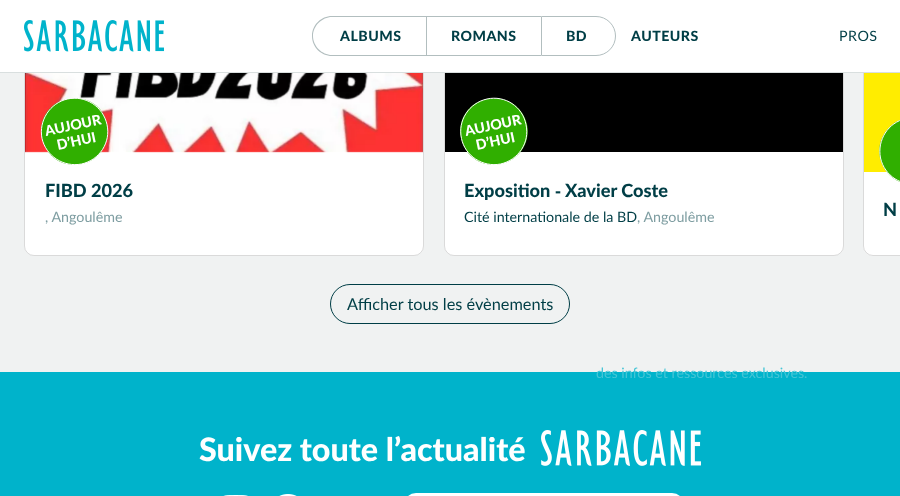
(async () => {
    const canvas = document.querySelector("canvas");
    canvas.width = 900;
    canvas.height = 496;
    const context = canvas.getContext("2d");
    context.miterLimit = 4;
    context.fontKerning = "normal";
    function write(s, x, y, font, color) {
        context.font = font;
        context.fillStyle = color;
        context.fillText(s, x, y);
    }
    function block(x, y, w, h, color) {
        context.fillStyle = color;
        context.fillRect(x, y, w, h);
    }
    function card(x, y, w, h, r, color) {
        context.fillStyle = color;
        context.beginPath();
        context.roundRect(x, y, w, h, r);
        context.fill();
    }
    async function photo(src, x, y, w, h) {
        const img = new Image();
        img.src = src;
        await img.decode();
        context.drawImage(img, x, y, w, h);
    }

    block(0, 0, 900, 496, "rgb(0, 179, 203)");
    block(0, 73, 900, 299, "rgb(240, 242, 242)");
    card(24, -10, 400, 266, 10, "rgb(255, 255, 255)");
    context.beginPath();
    context.roundRect(24.5, -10.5, 399, 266, 9.5);
    context.strokeStyle = "rgba(70, 70, 70, 0.2)";
    context.stroke();
    card(444, -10, 400, 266, 10, "rgb(255, 255, 255)");
    context.beginPath();
    context.roundRect(444.5, -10.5, 399, 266, 9.5);
    context.stroke();
    context.beginPath();
    context.moveTo(873, -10);
    context.lineTo(900, -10);
    context.lineTo(900, 256);
    context.lineTo(873, 256);
    context.bezierCurveTo(867.5, 256, 863, 251.5, 863, 246);
    context.lineTo(863, 0);
    context.bezierCurveTo(863, -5.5, 867.5, -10, 873, -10);
    context.closePath();
    context.fill();
    context.beginPath();
    context.roundRect(863.5, -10.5, 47, 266, 9.5);
    context.stroke();
    block(0, 0, 864, 72, "rgb(255, 255, 255)");
    block(0, 72, 900, 1, "rgb(217, 223, 223)");
    await photo("media/1.png", 24, 20, 140, 32);
    context.fillStyle = "rgb(178, 190, 191)";
    context.beginPath();
    context.moveTo(332, 16);
    context.lineTo(426, 16);
    context.lineTo(426, 56);
    context.lineTo(332, 56);
    context.bezierCurveTo(321, 56, 312, 47, 312, 36);
    context.bezierCurveTo(312, 25, 321, 16, 332, 16);
    context.closePath();
    context.moveTo(332, 17);
    context.lineTo(426, 17);
    context.lineTo(426, 55);
    context.lineTo(332, 55);
    context.bezierCurveTo(322, 55, 313, 46, 313, 36);
    context.bezierCurveTo(313, 26, 322, 17, 332, 17);
    context.closePath();
    context.fill("evenodd");
    context.letterSpacing = "0.5px";
    write("ALBUMS", 340, 41, "800 14px Lato", "rgb(0, 62, 70)");
    block(426, 16, 115, 1, "rgb(178, 190, 191)");
    block(426, 55, 115, 1, "rgb(178, 190, 191)");
    block(426, 16, 1, 40, "rgb(178, 190, 191)");
    write("ROMANS", 451, 41, "800 14px Lato", "rgb(0, 62, 70)");
    context.beginPath();
    context.roundRect(541.5, 16.5, 74, 39, [0, 19.5, 19.5, 0]);
    context.strokeStyle = "rgb(178, 190, 191)";
    context.stroke();
    write("BD", 566, 41, "800 14px Lato", "rgb(0, 62, 70)");
    write("AUTEURS", 631, 41, "800 14px Lato", "rgb(0, 62, 70)");
    write("PROS", 839, 41, "14px Lato", "rgb(0, 62, 70)");
    context.letterSpacing = "0px";
    write("des infos et ressources exclusives.", 596, 378, "14px Lato", "rgb(68, 197, 214)");
    await photo("media/2.png", 25, 73, 398, 80);
    context.fillStyle = "rgb(48, 175, 0)";
    context.beginPath();
    context.moveTo(68, 99);
    context.bezierCurveTo(86, 95, 104, 106, 107, 124);
    context.bezierCurveTo(111, 143, 100, 160, 82, 164);
    context.bezierCurveTo(63, 168, 46, 157, 42, 138);
    context.bezierCurveTo(38, 120, 49, 102, 68, 99);
    context.closePath();
    context.fill();
    context.beginPath();
    context.moveTo(67.5, 99);
    context.bezierCurveTo(85.5, 95, 103, 106.5, 107, 124.5);
    context.bezierCurveTo(111, 142.5, 99.5, 160, 81.5, 164);
    context.bezierCurveTo(63.5, 167.5, 46, 156, 42, 138.5);
    context.bezierCurveTo(38.5, 120.5, 50, 103, 67.5, 99);
    context.closePath();
    context.strokeStyle = "rgb(255, 255, 255)";
    context.stroke();
    context.font = "800 14px Lato";
    context.fillStyle = "rgb(255, 255, 255)";
    context.save();
    context.translate(46, 136);
    context.rotate(-12 * Math.PI / 180);
    context.fillText("AUJOUR", 0, 0);
    context.restore();
    context.save();
    context.translate(58, 150);
    context.rotate(-12 * Math.PI / 180);
    context.fillText("D’HUI", 0, 0);
    context.restore();
    write("FIBD 2026", 45, 197, "800 18px Lato", "rgb(0, 62, 70)");
    write(", Angoulême", 45, 222, "14px Lato", "rgb(127, 158, 162)");
    block(445, 73, 398, 79, "rgb(0, 0, 0)");
    context.fillStyle = "rgb(48, 175, 0)";
    context.beginPath();
    context.moveTo(487, 99);
    context.bezierCurveTo(505, 95, 523, 106, 527, 124);
    context.bezierCurveTo(531, 143, 519, 160, 501, 164);
    context.bezierCurveTo(483, 168, 465, 157, 461, 138);
    context.bezierCurveTo(457, 120, 469, 102, 487, 99);
    context.closePath();
    context.fill();
    context.beginPath();
    context.moveTo(487, 99);
    context.bezierCurveTo(505, 95, 522.5, 106.5, 526, 124.5);
    context.bezierCurveTo(530, 142.5, 518.5, 160, 500.5, 164);
    context.bezierCurveTo(483, 167.5, 465, 156, 461.5, 138.5);
    context.bezierCurveTo(457.5, 120.5, 469, 103, 487, 99);
    context.closePath();
    context.stroke();
    context.font = "800 14px Lato";
    context.fillStyle = "rgb(255, 255, 255)";
    context.save();
    context.translate(466, 136);
    context.rotate(-12 * Math.PI / 180);
    context.fillText("AUJOUR", 0, 0);
    context.restore();
    context.save();
    context.translate(477, 150);
    context.rotate(-12 * Math.PI / 180);
    context.fillText("D’HUI", 0, 0);
    context.restore();
    write("Exposition", 464, 197, "800 18px Lato", "rgb(0, 62, 70)");
    write("-", 555, 197, "bold 18px Liberation Sans", "rgb(0, 62, 70)");
    write("Xavier Coste", 565, 197, "800 18px Lato", "rgb(0, 62, 70)");
    write("Cité internationale de la BD", 464, 222, "14px Lato", "rgb(0, 62, 70)");
    write(", Angoulême", 637, 222, "14px Lato", "rgb(127, 158, 162)");
    block(864, 73, 36, 99, "rgb(255, 237, 0)");
    context.fillStyle = "rgb(48, 175, 0)";
    context.beginPath();
    context.moveTo(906, 118);
    context.bezierCurveTo(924, 114, 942, 126, 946, 144);
    context.bezierCurveTo(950, 162, 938, 180, 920, 184);
    context.bezierCurveTo(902, 188, 884, 176, 880, 158);
    context.bezierCurveTo(876, 140, 888, 122, 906, 118);
    context.closePath();
    context.fill();
    context.beginPath();
    context.moveTo(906, 118.5);
    context.bezierCurveTo(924, 115, 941.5, 126, 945.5, 144);
    context.bezierCurveTo(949, 162, 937.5, 179.5, 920, 183.5);
    context.bezierCurveTo(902, 187, 884.5, 176, 880.5, 158);
    context.bezierCurveTo(877, 140, 888, 122.5, 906, 118.5);
    context.closePath();
    context.stroke();
    write("N", 883, 216, "800 18px Lato", "rgb(0, 62, 70)");
    context.beginPath();
    context.roundRect(330.5, 284.5, 239, 39, 19.5);
    context.strokeStyle = "rgb(0, 62, 70)";
    context.stroke();
    write("Afficher tous les évènements", 347, 310, "16px Lato", "rgb(0, 62, 70)");
    write("Suivez toute l’actualité", 199, 461, "800 32px Lato", "rgb(255, 255, 255)");
    await photo("media/3.png", 541, 430, 160, 36);
    await photo("media/4.png", 223, 495, 25, 1);
    await photo("media/5.png", 279, 494, 18, 2);
    card(404, 493, 280, 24, 21, "rgb(255, 255, 255)");
})();
